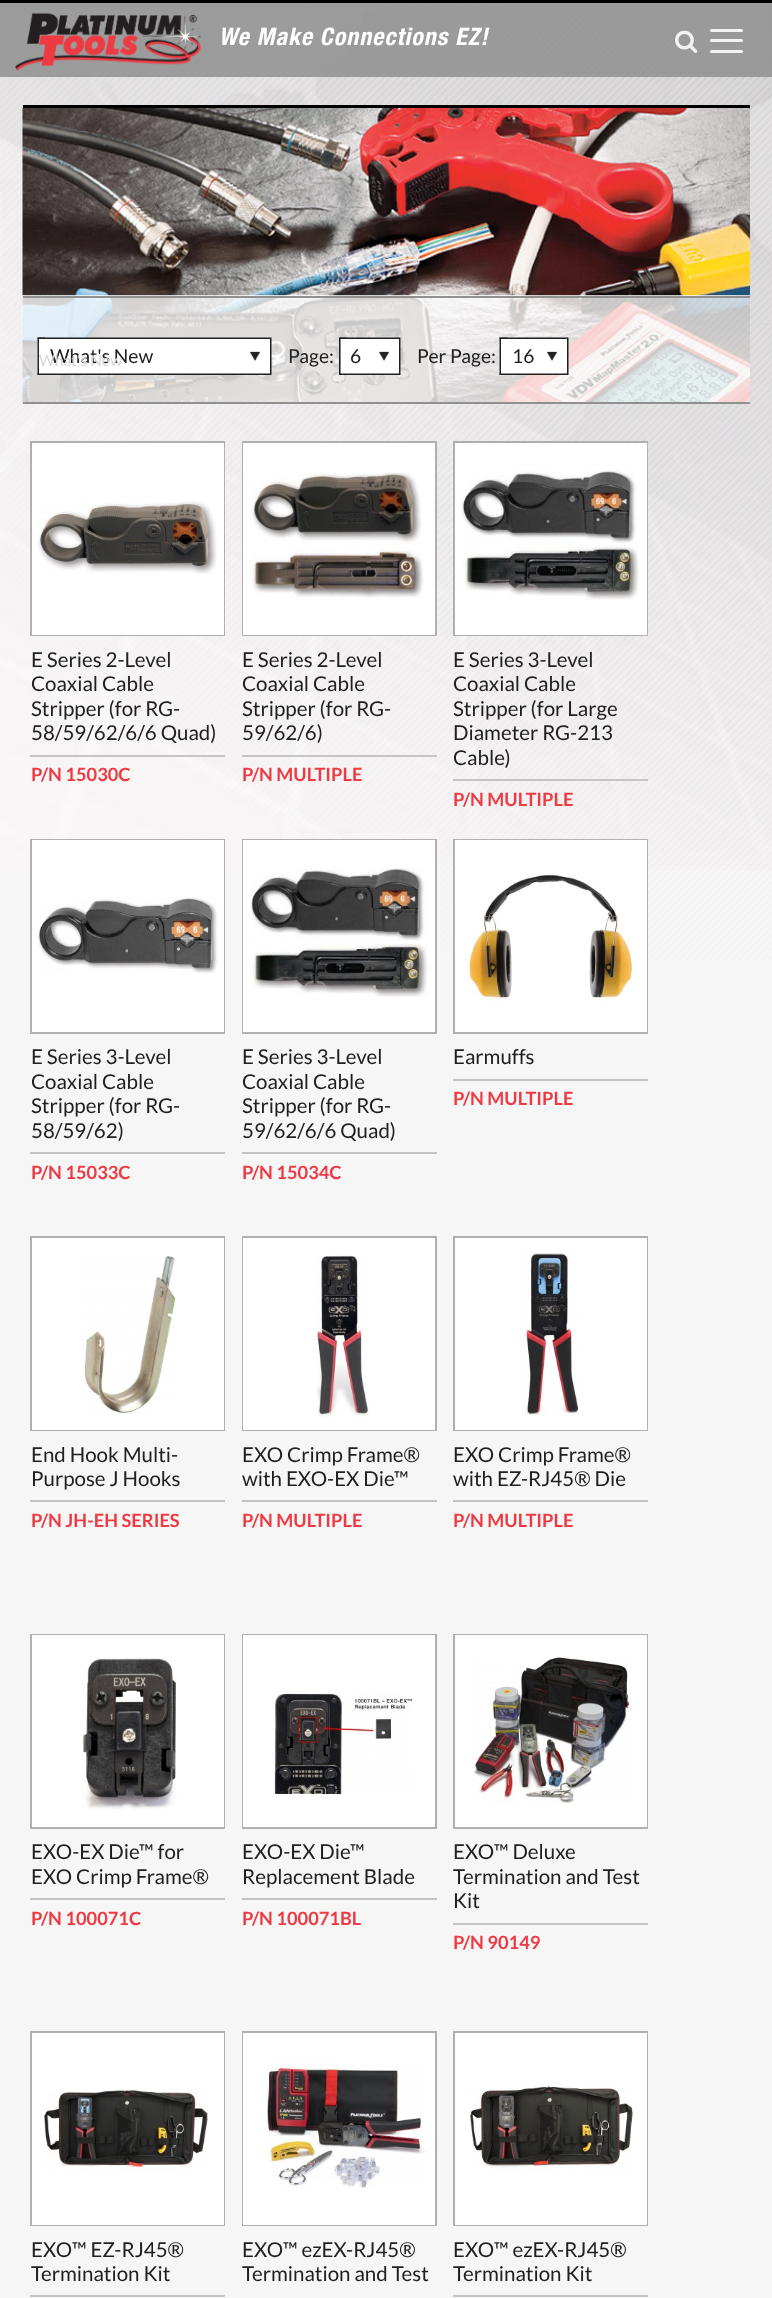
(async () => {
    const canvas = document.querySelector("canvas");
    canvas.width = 772;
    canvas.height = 2298;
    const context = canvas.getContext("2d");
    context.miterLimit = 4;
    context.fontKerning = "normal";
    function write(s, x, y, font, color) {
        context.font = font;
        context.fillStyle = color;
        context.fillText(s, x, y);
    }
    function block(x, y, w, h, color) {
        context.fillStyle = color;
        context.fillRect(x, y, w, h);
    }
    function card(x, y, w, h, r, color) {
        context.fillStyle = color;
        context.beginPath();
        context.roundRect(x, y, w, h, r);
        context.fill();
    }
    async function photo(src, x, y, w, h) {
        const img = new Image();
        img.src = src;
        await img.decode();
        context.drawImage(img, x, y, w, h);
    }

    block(0, 0, 772, 2298, "rgb(247, 246, 246)");
    await photo("media/1.png", 0, 3, 772, 868);
    await photo("media/2.png", 1, 3, 771, 957);
    block(0, 3, 772, 74, "rgba(143, 143, 143, 0.85)");
    block(0, 0, 772, 3, "rgb(0, 0, 0)");
    await photo("media/3.png", 675, 30, 23, 23);
    card(710, 29, 33, 3, 1.5, "rgb(243, 243, 243)");
    card(710, 39, 33, 3, 1.5, "rgb(243, 243, 243)");
    card(710, 50, 33, 3, 1.5, "rgb(243, 243, 243)");
    await photo("media/4.png", 15, 13, 186, 58);
    context.letterSpacing = "1px";
    write("We Make Connections EZ!", 219, 45, "24px 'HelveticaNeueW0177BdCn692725'", "rgb(255, 255, 255)");
    await photo("media/5.png", 22, 108, 728, 296);
    block(23, 105, 727, 3, "rgb(0, 0, 0)");
    block(22, 295, 728, 109, "rgba(252, 252, 252, 0.79)");
    await photo("media/6.png", 515, 299, 235, 103);
    block(23, 296, 727, 2, "rgb(144, 144, 144)");
    block(23, 402, 727, 2, "rgb(144, 144, 144)");
    await photo("media/7.png", 37, 337, 235, 38);
    await photo("media/8.png", 37, 337, 8, 38);
    context.letterSpacing = "0px";
    write("What's New", 50, 363, "19.25px Lato", "rgb(32, 32, 32)");
    write("What's New", 39, 366, "15.5px Lato", "rgb(215, 215, 215)");
    write("Page:", 288, 363, "19.25px Lato", "rgb(32, 32, 32)");
    await photo("media/9.png", 339, 337, 62, 38);
    await photo("media/10.png", 339, 337, 8, 37);
    write("6", 350, 363, "19.25px Lato", "rgb(32, 32, 32)");
    write("Per Page:", 417, 363, "19.25px Lato", "rgb(32, 32, 32)");
    await photo("media/11.png", 499, 337, 70, 38);
    await photo("media/12.png", 499, 337, 8, 38);
    write("16", 512, 363, "19.25px Lato", "rgb(32, 32, 32)");
    context.strokeStyle = "rgb(176, 176, 176)";
    context.lineWidth = 2;
    context.strokeRect(31, 442, 193, 193);
    block(32, 443, 192, 192, "rgb(255, 255, 255)");
    await photo("media/13.png", 37, 501, 180, 73);
    write("E Series 2-Level", 31, 667, "20.5px Lato", "rgb(32, 32, 32)");
    write("Coaxial Cable", 31, 691, "20.5px Lato", "rgb(32, 32, 32)");
    write("Stripper (for RG-", 31, 716, "20.5px Lato", "rgb(32, 32, 32)");
    write("58/59/62/6/6 Quad)", 31, 740, "20.5px Lato", "rgb(32, 32, 32)");
    block(30, 755, 195, 2, "rgb(196, 196, 196)");
    write("P/N 15030C", 31, 781, "bold 18.25px Lato", "rgb(238, 58, 67)");
    context.strokeRect(243, 442, 193, 193);
    block(243, 443, 192, 192, "rgb(255, 255, 255)");
    await photo("media/14.png", 249, 472, 175, 128);
    write("E Series 2-Level", 242, 667, "20.5px Lato", "rgb(32, 32, 32)");
    write("Coaxial Cable", 242, 691, "20.5px Lato", "rgb(32, 32, 32)");
    write("Stripper (for RG-", 242, 716, "20.5px Lato", "rgb(32, 32, 32)");
    write("59/62/6)", 242, 740, "20.5px Lato", "rgb(32, 32, 32)");
    block(242, 755, 195, 2, "rgb(196, 196, 196)");
    write("P/N MULTIPLE", 242, 781, "bold 18.25px Lato", "rgb(238, 58, 67)");
    context.strokeRect(454, 442, 193, 193);
    block(455, 443, 192, 192, "rgb(255, 255, 255)");
    await photo("media/15.png", 461, 470, 178, 130);
    write("E Series 3-Level", 453, 667, "20.5px Lato", "rgb(32, 32, 32)");
    write("Coaxial Cable", 453, 691, "20.5px Lato", "rgb(32, 32, 32)");
    write("Stripper (for Large", 453, 716, "20.5px Lato", "rgb(32, 32, 32)");
    write("Diameter RG-213", 453, 740, "20.5px Lato", "rgb(32, 32, 32)");
    write("Cable)", 453, 765, "20.5px Lato", "rgb(32, 32, 32)");
    block(453, 779, 195, 2, "rgb(196, 196, 196)");
    write("P/N MULTIPLE", 453, 806, "bold 18.25px Lato", "rgb(238, 58, 67)");
    context.strokeRect(31, 840, 193, 193);
    block(32, 840, 192, 192, "rgb(255, 255, 255)");
    await photo("media/16.png", 38, 897, 180, 77);
    write("E Series 3-Level", 31, 1064, "20.5px Lato", "rgb(32, 32, 32)");
    write("Coaxial Cable", 31, 1089, "20.5px Lato", "rgb(32, 32, 32)");
    write("Stripper (for RG-", 31, 1113, "20.5px Lato", "rgb(32, 32, 32)");
    write("58/59/62)", 31, 1138, "20.5px Lato", "rgb(32, 32, 32)");
    block(30, 1152, 195, 2, "rgb(196, 196, 196)");
    write("P/N 15033C", 31, 1179, "bold 18.25px Lato", "rgb(238, 58, 67)");
    context.strokeRect(243, 840, 193, 193);
    block(243, 840, 192, 192, "rgb(255, 255, 255)");
    await photo("media/17.png", 250, 868, 178, 129);
    write("E Series 3-Level", 242, 1064, "20.5px Lato", "rgb(32, 32, 32)");
    write("Coaxial Cable", 242, 1089, "20.5px Lato", "rgb(32, 32, 32)");
    write("Stripper (for RG-", 242, 1113, "20.5px Lato", "rgb(32, 32, 32)");
    write("59/62/6/6 Quad)", 242, 1138, "20.5px Lato", "rgb(32, 32, 32)");
    block(242, 1152, 195, 2, "rgb(196, 196, 196)");
    write("P/N 15034C", 242, 1179, "bold 18.25px Lato", "rgb(238, 58, 67)");
    context.strokeRect(454, 840, 193, 193);
    block(455, 840, 192, 192, "rgb(255, 255, 255)");
    await photo("media/18.png", 462, 874, 171, 130);
    write("Earmuffs", 453, 1064, "20.5px Lato", "rgb(32, 32, 32)");
    block(453, 1079, 195, 2, "rgb(196, 196, 196)");
    write("P/N MULTIPLE", 453, 1105, "bold 18.25px Lato", "rgb(238, 58, 67)");
    context.strokeRect(31, 1237, 193, 193);
    block(32, 1238, 192, 192, "rgb(255, 255, 255)");
    await photo("media/19.png", 82, 1255, 94, 159);
    write("End Hook Multi-", 31, 1462, "20.5px Lato", "rgb(32, 32, 32)");
    write("Purpose J Hooks", 31, 1486, "20.5px Lato", "rgb(32, 32, 32)");
    block(30, 1500, 195, 2, "rgb(196, 196, 196)");
    write("P/N JH-EH SERIES", 31, 1527, "bold 18.25px Lato", "rgb(238, 58, 67)");
    context.strokeRect(243, 1237, 193, 193);
    block(243, 1238, 192, 192, "rgb(255, 255, 255)");
    await photo("media/20.png", 316, 1255, 54, 162);
    write("EXO Crimp Frame®", 242, 1462, "20.5px Lato", "rgb(32, 32, 32)");
    write("with EXO-EX Die™", 242, 1486, "20.5px Lato", "rgb(32, 32, 32)");
    block(242, 1500, 195, 2, "rgb(196, 196, 196)");
    write("P/N MULTIPLE", 242, 1527, "bold 18.25px Lato", "rgb(238, 58, 67)");
    context.strokeRect(454, 1237, 193, 193);
    block(455, 1238, 192, 192, "rgb(255, 255, 255)");
    await photo("media/21.png", 519, 1253, 60, 163);
    write("EXO Crimp Frame®", 453, 1462, "20.5px Lato", "rgb(32, 32, 32)");
    write("with EZ-RJ45® Die", 453, 1486, "20.5px Lato", "rgb(32, 32, 32)");
    block(453, 1500, 195, 2, "rgb(196, 196, 196)");
    write("P/N MULTIPLE", 453, 1527, "bold 18.25px Lato", "rgb(238, 58, 67)");
    context.strokeRect(31, 1635, 193, 193);
    block(32, 1635, 192, 192, "rgb(255, 255, 255)");
    await photo("media/22.png", 81, 1658, 96, 152);
    write("EXO-EX Die™ for", 31, 1859, "20.5px Lato", "rgb(32, 32, 32)");
    write("EXO Crimp Frame®", 31, 1884, "20.5px Lato", "rgb(32, 32, 32)");
    block(30, 1898, 195, 2, "rgb(196, 196, 196)");
    write("P/N 100071C", 31, 1925, "bold 18.25px Lato", "rgb(238, 58, 67)");
    context.strokeRect(243, 1635, 193, 193);
    block(243, 1635, 192, 192, "rgb(255, 255, 255)");
    await photo("media/23.png", 272, 1691, 140, 103);
    write("EXO-EX Die™", 242, 1859, "20.5px Lato", "rgb(32, 32, 32)");
    write("Replacement Blade", 242, 1884, "20.5px Lato", "rgb(32, 32, 32)");
    block(242, 1898, 195, 2, "rgb(196, 196, 196)");
    write("P/N 100071BL", 242, 1925, "bold 18.25px Lato", "rgb(238, 58, 67)");
    context.strokeRect(454, 1635, 193, 193);
    block(455, 1635, 192, 192, "rgb(255, 255, 255)");
    await photo("media/24.png", 472, 1657, 160, 147);
    write("EXO™ Deluxe", 453, 1859, "20.5px Lato", "rgb(32, 32, 32)");
    write("Termination and Test", 453, 1884, "20.5px Lato", "rgb(32, 32, 32)");
    write("Kit", 453, 1908, "20.5px Lato", "rgb(32, 32, 32)");
    block(453, 1923, 195, 2, "rgb(196, 196, 196)");
    write("P/N 90149", 453, 1949, "bold 18.25px Lato", "rgb(238, 58, 67)");
    context.strokeRect(31, 2032, 193, 193);
    block(32, 2033, 192, 192, "rgb(255, 255, 255)");
    await photo("media/25.png", 44, 2089, 165, 83);
    write("EXO™ EZ-RJ45®", 31, 2257, "20.5px Lato", "rgb(32, 32, 32)");
    write("Termination Kit", 31, 2281, "20.5px Lato", "rgb(32, 32, 32)");
    block(30, 2295, 195, 2, "rgb(196, 196, 196)");
    context.strokeRect(243, 2032, 193, 193);
    block(243, 2033, 192, 192, "rgb(255, 255, 255)");
    await photo("media/26.png", 267, 2061, 159, 128);
    write("EXO™ ezEX-RJ45®", 242, 2257, "20.5px Lato", "rgb(32, 32, 32)");
    write("Termination and Test", 242, 2281, "20.5px Lato", "rgb(32, 32, 32)");
    context.strokeRect(454, 2032, 193, 193);
    block(455, 2033, 192, 192, "rgb(255, 255, 255)");
    await photo("media/27.png", 468, 2086, 165, 86);
    write("EXO™ ezEX-RJ45®", 453, 2257, "20.5px Lato", "rgb(32, 32, 32)");
    write("Termination Kit", 453, 2281, "20.5px Lato", "rgb(32, 32, 32)");
    block(453, 2295, 195, 2, "rgb(196, 196, 196)");
})();
